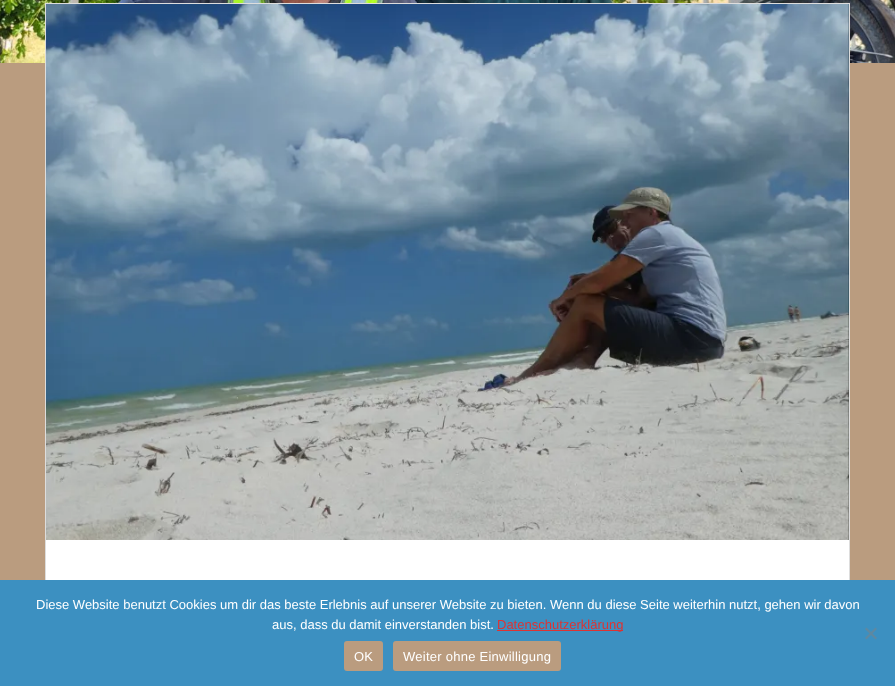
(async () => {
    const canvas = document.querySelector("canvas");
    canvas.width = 895;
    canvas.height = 686;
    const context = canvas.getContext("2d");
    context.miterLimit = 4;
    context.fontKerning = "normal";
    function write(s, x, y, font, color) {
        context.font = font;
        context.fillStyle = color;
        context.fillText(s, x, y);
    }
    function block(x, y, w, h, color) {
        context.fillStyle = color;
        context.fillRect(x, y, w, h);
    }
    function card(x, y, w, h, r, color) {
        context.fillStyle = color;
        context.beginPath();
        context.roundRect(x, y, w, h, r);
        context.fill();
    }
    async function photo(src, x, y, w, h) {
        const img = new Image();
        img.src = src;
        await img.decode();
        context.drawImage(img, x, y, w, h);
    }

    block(0, 0, 895, 686, "rgb(186, 156, 127)");
    await photo("media/1.png", 0, 0, 895, 63);
    block(46, 540, 803, 40, "rgb(255, 255, 255)");
    context.strokeStyle = "rgb(221, 221, 221)";
    context.strokeRect(45.5, 3.5, 804, 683);
    await photo("media/2.png", 46, 4, 803, 536);
    block(0, 580, 895, 106, "rgb(60, 144, 193)");
    write("Diese Website benutzt Cookies um dir das beste Erlebnis auf unserer Website zu bieten. Wenn du diese Seite weiterhin nutzt, gehen wir davon", 36, 609, "13px Liberation Sans", "rgb(255, 255, 255)");
    write("aus, dass du damit einverstanden bist.", 272, 629, "13px Liberation Sans", "rgb(255, 255, 255)");
    block(497, 630, 126, 1, "rgb(221, 51, 51)");
    write("Datenschutzerklärung", 497, 629, "13px Liberation Sans", "rgb(221, 51, 51)");
    context.fillStyle = "rgb(94, 136, 161)";
    context.beginPath();
    context.moveTo(875.5, 627.5);
    context.lineTo(877, 629);
    context.lineTo(866.5, 639.5);
    context.lineTo(865, 638);
    context.closePath();
    context.fill();
    context.beginPath();
    context.moveTo(865, 629);
    context.lineTo(866.5, 627.5);
    context.lineTo(877, 638);
    context.lineTo(875.5, 639.5);
    context.closePath();
    context.fill();
    card(344, 641, 39, 30, 3, "rgb(186, 156, 127)");
    context.letterSpacing = "0.25px";
    write("OK", 354, 661, "13px Liberation Sans", "rgb(255, 255, 255)");
    card(393, 641, 168, 30, 3, "rgb(186, 156, 127)");
    write("Weiter ohne Einwilligung", 403, 661, "13px Liberation Sans", "rgb(255, 255, 255)");
})();
